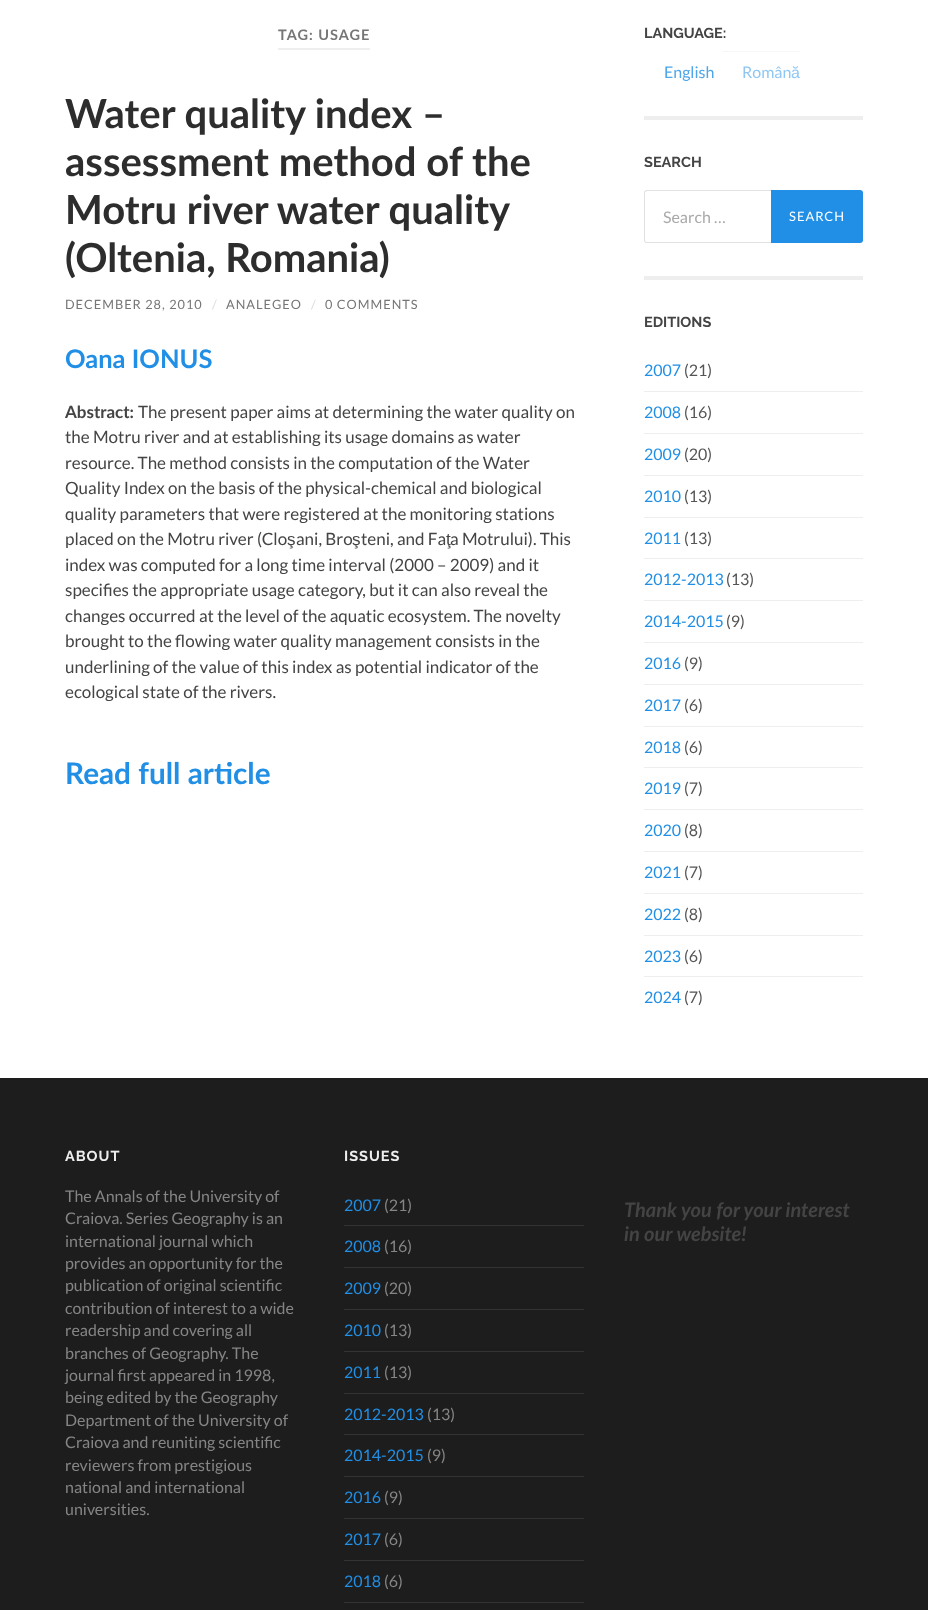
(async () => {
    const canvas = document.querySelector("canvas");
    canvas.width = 928;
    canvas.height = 1610;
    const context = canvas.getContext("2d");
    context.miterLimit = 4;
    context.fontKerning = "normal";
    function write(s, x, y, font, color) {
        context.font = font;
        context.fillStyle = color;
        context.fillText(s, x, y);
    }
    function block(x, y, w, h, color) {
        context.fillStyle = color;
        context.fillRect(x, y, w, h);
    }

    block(0, 0, 928, 1610, "rgb(255, 255, 255)");
    block(278, 48, 92, 2, "rgb(238, 238, 238)");
    context.letterSpacing = "1px";
    write("TAG: USAGE", 278, 40, "bold 14.5px Lato", "rgb(118, 118, 118)");
    context.letterSpacing = "0px";
    write("Water quality index –", 65, 128, "bold 40px Lato", "rgb(45, 45, 45)");
    write("assessment method of the", 65, 176, "bold 40px Lato", "rgb(45, 45, 45)");
    write("Motru river water quality", 65, 224, "bold 40px Lato", "rgb(45, 45, 45)");
    write("(Oltenia, Romania)", 65, 272, "bold 40px Lato", "rgb(45, 45, 45)");
    context.letterSpacing = "1px";
    write("DECEMBER 28, 2010", 65, 309, "12.75px Lato", "rgb(118, 118, 118)");
    write("/", 212, 309, "12.75px Lato", "rgb(221, 221, 221)");
    write("ANALEGEO", 226, 309, "12.75px Lato", "rgb(118, 118, 118)");
    write("/", 311, 309, "12.75px Lato", "rgb(221, 221, 221)");
    write("0 COMMENTS", 325, 309, "12.75px Lato", "rgb(118, 118, 118)");
    context.letterSpacing = "0px";
    write("Oana IONUS", 65, 368, "bold 25.5px Lato", "rgb(32, 143, 229)");
    write("Abstract:", 65, 418, "bold 17px Lato", "rgb(68, 68, 68)");
    write("The present paper aims at determining the water quality on", 138, 418, "17px Lato", "rgb(68, 68, 68)");
    write("the Motru river and at establishing its usage domains as water", 65, 443, "17px Lato", "rgb(68, 68, 68)");
    write("resource. The method consists in the computation of the Water", 65, 469, "17px Lato", "rgb(68, 68, 68)");
    write("Quality Index on the basis of the physical-chemical and biological", 65, 494, "17px Lato", "rgb(68, 68, 68)");
    write("quality parameters that were registered at the monitoring stations", 65, 520, "17px Lato", "rgb(68, 68, 68)");
    write("placed on the Motru river (Clo", 65, 545, "17px Lato", "rgb(68, 68, 68)");
    write("ş", 287, 545, "17px Liberation Sans", "rgb(68, 68, 68)");
    write("ani, Bro", 296, 545, "17px Lato", "rgb(68, 68, 68)");
    write("ş", 352, 545, "17px Liberation Sans", "rgb(68, 68, 68)");
    write("teni, and Fa", 361, 545, "17px Lato", "rgb(68, 68, 68)");
    write("ţ", 446, 545, "17px Liberation Sans", "rgb(68, 68, 68)");
    write("a Motrului). This", 450, 545, "17px Lato", "rgb(68, 68, 68)");
    write("index was computed for a long time interval (2000 – 2009) and it", 65, 571, "17px Lato", "rgb(68, 68, 68)");
    write("specifies the appropriate usage category, but it can also reveal the", 65, 596, "17px Lato", "rgb(68, 68, 68)");
    write("changes occurred at the level of the aquatic ecosystem. The novelty", 65, 622, "17px Lato", "rgb(68, 68, 68)");
    write("brought to the flowing water quality management consists in the", 65, 647, "17px Lato", "rgb(68, 68, 68)");
    write("underlining of the value of this index as potential indicator of the", 65, 673, "17px Lato", "rgb(68, 68, 68)");
    write("ecological state of the rivers.", 65, 698, "17px Lato", "rgb(68, 68, 68)");
    write("Read full article", 65, 784, "bold 29.75px Lato", "rgb(32, 143, 229)");
    block(644, 116, 219, 4, "rgb(238, 238, 238)");
    write("LANGUAGE:", 644, 38, "bold 14.5px Raleway", "rgb(68, 68, 68)");
    write("English", 664, 78, "16px Lato", "rgb(77, 165, 234)");
    write("Român", 742, 78, "16px Lato", "rgb(144, 199, 242)");
    block(722, 51, 78, 1, "rgb(247, 247, 247)");
    write("ă", 791, 78, "16px Liberation Sans", "rgb(144, 199, 242)");
    block(644, 276, 219, 4, "rgb(238, 238, 238)");
    write("SEARCH", 644, 167, "bold 14.5px Raleway", "rgb(68, 68, 68)");
    context.fillStyle = "rgb(225, 225, 227)";
    context.beginPath();
    context.moveTo(647, 190);
    context.lineTo(771, 190);
    context.lineTo(771, 243);
    context.lineTo(647, 243);
    context.bezierCurveTo(645, 243, 644, 242, 644, 240);
    context.lineTo(644, 193);
    context.bezierCurveTo(644, 191, 645, 190, 647, 190);
    context.closePath();
    context.moveTo(647, 191);
    context.lineTo(771, 191);
    context.lineTo(771, 242);
    context.lineTo(647, 242);
    context.bezierCurveTo(646, 242, 645, 241, 645, 240);
    context.lineTo(645, 193);
    context.bezierCurveTo(645, 192, 646, 191, 647, 191);
    context.closePath();
    context.fill("evenodd");
    write("Search …", 663, 223, "16px Lato", "rgb(169, 169, 169)");
    context.fillStyle = "rgb(32, 143, 229)";
    context.beginPath();
    context.roundRect(771, 190, 92, 53, [0, 3, 3, 0]);
    context.fill();
    context.letterSpacing = "1px";
    write("SEARCH", 789, 221, "13px Lato", "rgb(255, 255, 255)");
    context.letterSpacing = "0px";
    write("EDITIONS", 644, 327, "bold 14.5px Raleway", "rgb(68, 68, 68)");
    write("2007", 644, 376, "16px Lato", "rgb(32, 143, 229)");
    write("(21)", 684, 376, "16px Lato", "rgb(85, 85, 85)");
    block(644, 391, 219, 1, "rgb(238, 238, 238)");
    write("2008", 644, 418, "16px Lato", "rgb(32, 143, 229)");
    write("(16)", 684, 418, "16px Lato", "rgb(85, 85, 85)");
    block(644, 433, 219, 1, "rgb(238, 238, 238)");
    write("2009", 644, 460, "16px Lato", "rgb(32, 143, 229)");
    write("(20)", 684, 460, "16px Lato", "rgb(85, 85, 85)");
    block(644, 475, 219, 1, "rgb(238, 238, 238)");
    write("2010", 644, 502, "16px Lato", "rgb(32, 143, 229)");
    write("(13)", 684, 502, "16px Lato", "rgb(85, 85, 85)");
    block(644, 517, 219, 1, "rgb(238, 238, 238)");
    write("2011", 644, 544, "16px Lato", "rgb(32, 143, 229)");
    write("(13)", 684, 544, "16px Lato", "rgb(85, 85, 85)");
    block(644, 558, 219, 1, "rgb(238, 238, 238)");
    write("2012-2013", 644, 585, "16px Lato", "rgb(32, 143, 229)");
    write("(13)", 726, 585, "16px Lato", "rgb(85, 85, 85)");
    block(644, 600, 219, 1, "rgb(238, 238, 238)");
    write("2014-2015", 644, 627, "16px Lato", "rgb(32, 143, 229)");
    write("(9)", 726, 627, "16px Lato", "rgb(85, 85, 85)");
    block(644, 642, 219, 1, "rgb(238, 238, 238)");
    write("2016", 644, 669, "16px Lato", "rgb(32, 143, 229)");
    write("(9)", 684, 669, "16px Lato", "rgb(85, 85, 85)");
    block(644, 684, 219, 1, "rgb(238, 238, 238)");
    write("2017", 644, 711, "16px Lato", "rgb(32, 143, 229)");
    write("(6)", 684, 711, "16px Lato", "rgb(85, 85, 85)");
    block(644, 726, 219, 1, "rgb(238, 238, 238)");
    write("2018", 644, 753, "16px Lato", "rgb(32, 143, 229)");
    write("(6)", 684, 753, "16px Lato", "rgb(85, 85, 85)");
    block(644, 767, 219, 1, "rgb(238, 238, 238)");
    write("2019", 644, 794, "16px Lato", "rgb(32, 143, 229)");
    write("(7)", 684, 794, "16px Lato", "rgb(85, 85, 85)");
    block(644, 809, 219, 1, "rgb(238, 238, 238)");
    write("2020", 644, 836, "16px Lato", "rgb(32, 143, 229)");
    write("(8)", 684, 836, "16px Lato", "rgb(85, 85, 85)");
    block(644, 851, 219, 1, "rgb(238, 238, 238)");
    write("2021", 644, 878, "16px Lato", "rgb(32, 143, 229)");
    write("(7)", 684, 878, "16px Lato", "rgb(85, 85, 85)");
    block(644, 893, 219, 1, "rgb(238, 238, 238)");
    write("2022", 644, 920, "16px Lato", "rgb(32, 143, 229)");
    write("(8)", 684, 920, "16px Lato", "rgb(85, 85, 85)");
    block(644, 935, 219, 1, "rgb(238, 238, 238)");
    write("2023", 644, 962, "16px Lato", "rgb(32, 143, 229)");
    write("(6)", 684, 962, "16px Lato", "rgb(85, 85, 85)");
    block(644, 976, 219, 1, "rgb(238, 238, 238)");
    write("2024", 644, 1003, "16px Lato", "rgb(32, 143, 229)");
    write("(7)", 684, 1003, "16px Lato", "rgb(85, 85, 85)");
    block(0, 1078, 928, 532, "rgb(29, 29, 29)");
    context.letterSpacing = "1px";
    write("ABOUT", 65, 1161, "bold 14.5px Raleway", "rgb(238, 238, 238)");
    context.letterSpacing = "0px";
    write("The Annals of the University of", 65, 1202, "16px Lato", "rgb(133, 133, 133)");
    write("Craiova. Series Geography is an", 65, 1224, "16px Lato", "rgb(133, 133, 133)");
    write("international journal which", 65, 1247, "16px Lato", "rgb(133, 133, 133)");
    write("provides an opportunity for the", 65, 1269, "16px Lato", "rgb(133, 133, 133)");
    write("publication of original scientific", 65, 1291, "16px Lato", "rgb(133, 133, 133)");
    write("contribution of interest to a wide", 65, 1314, "16px Lato", "rgb(133, 133, 133)");
    write("readership and covering all", 65, 1336, "16px Lato", "rgb(133, 133, 133)");
    write("branches of Geography. The", 65, 1359, "16px Lato", "rgb(133, 133, 133)");
    write("journal first appeared in 1998,", 65, 1381, "16px Lato", "rgb(133, 133, 133)");
    write("being edited by the Geography", 65, 1403, "16px Lato", "rgb(133, 133, 133)");
    write("Department of the University of", 65, 1426, "16px Lato", "rgb(133, 133, 133)");
    write("Craiova and reuniting scientific", 65, 1448, "16px Lato", "rgb(133, 133, 133)");
    write("reviewers from prestigious", 65, 1471, "16px Lato", "rgb(133, 133, 133)");
    write("national and international", 65, 1493, "16px Lato", "rgb(133, 133, 133)");
    write("universities.", 65, 1515, "16px Lato", "rgb(133, 133, 133)");
    context.letterSpacing = "1px";
    write("ISSUES", 344, 1161, "bold 14.5px Raleway", "rgb(238, 238, 238)");
    context.letterSpacing = "0px";
    write("2007", 344, 1211, "16px Lato", "rgb(32, 143, 229)");
    write("(21)", 384, 1211, "16px Lato", "rgb(133, 133, 133)");
    block(344, 1225, 240, 1, "rgb(51, 51, 51)");
    write("2008", 344, 1252, "16px Lato", "rgb(32, 143, 229)");
    write("(16)", 384, 1252, "16px Lato", "rgb(133, 133, 133)");
    block(344, 1267, 240, 1, "rgb(51, 51, 51)");
    write("2009", 344, 1294, "16px Lato", "rgb(32, 143, 229)");
    write("(20)", 384, 1294, "16px Lato", "rgb(133, 133, 133)");
    block(344, 1309, 240, 1, "rgb(51, 51, 51)");
    write("2010", 344, 1336, "16px Lato", "rgb(32, 143, 229)");
    write("(13)", 384, 1336, "16px Lato", "rgb(133, 133, 133)");
    block(344, 1351, 240, 1, "rgb(51, 51, 51)");
    write("2011", 344, 1378, "16px Lato", "rgb(32, 143, 229)");
    write("(13)", 384, 1378, "16px Lato", "rgb(133, 133, 133)");
    block(344, 1393, 240, 1, "rgb(51, 51, 51)");
    write("2012-2013", 344, 1420, "16px Lato", "rgb(32, 143, 229)");
    write("(13)", 427, 1420, "16px Lato", "rgb(133, 133, 133)");
    block(344, 1434, 240, 1, "rgb(51, 51, 51)");
    write("2014-2015", 344, 1461, "16px Lato", "rgb(32, 143, 229)");
    write("(9)", 427, 1461, "16px Lato", "rgb(133, 133, 133)");
    block(344, 1476, 240, 1, "rgb(51, 51, 51)");
    write("2016", 344, 1503, "16px Lato", "rgb(32, 143, 229)");
    write("(9)", 384, 1503, "16px Lato", "rgb(133, 133, 133)");
    block(344, 1518, 240, 1, "rgb(51, 51, 51)");
    write("2017", 344, 1545, "16px Lato", "rgb(32, 143, 229)");
    write("(6)", 384, 1545, "16px Lato", "rgb(133, 133, 133)");
    block(344, 1560, 240, 1, "rgb(51, 51, 51)");
    write("2018", 344, 1587, "16px Lato", "rgb(32, 143, 229)");
    write("(6)", 384, 1587, "16px Lato", "rgb(133, 133, 133)");
    block(344, 1602, 240, 1, "rgb(51, 51, 51)");
    write("Thank you for your interest", 624, 1217, "italic bold 20px Lato", "rgb(68, 68, 68)");
    write("in our website!", 624, 1241, "italic bold 20px Lato", "rgb(68, 68, 68)");
})();
